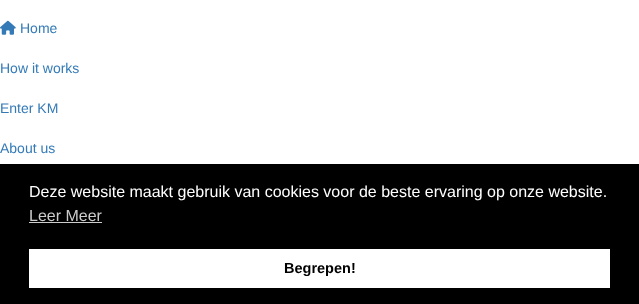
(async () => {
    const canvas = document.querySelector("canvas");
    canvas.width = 639;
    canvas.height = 304;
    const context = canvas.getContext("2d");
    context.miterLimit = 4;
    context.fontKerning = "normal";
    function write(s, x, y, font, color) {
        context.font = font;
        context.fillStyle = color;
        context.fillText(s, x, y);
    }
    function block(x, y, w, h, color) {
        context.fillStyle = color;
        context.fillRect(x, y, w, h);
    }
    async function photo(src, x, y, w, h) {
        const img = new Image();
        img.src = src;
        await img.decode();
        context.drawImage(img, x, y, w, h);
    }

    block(0, 0, 639, 304, "rgb(255, 255, 255)");
    await photo("media/1.png", 0, 20, 16, 15);
    write("Home", 20, 33, "14px Liberation Sans", "rgb(51, 122, 183)");
    write("How it works", 0, 73, "14px Liberation Sans", "rgb(51, 122, 183)");
    write("Enter KM", 0, 113, "14px Liberation Sans", "rgb(51, 122, 183)");
    write("About us", 0, 153, "14px Liberation Sans", "rgb(51, 122, 183)");
    block(0, 164, 639, 140, "rgb(0, 0, 0)");
    write("Deze website maakt gebruik van cookies voor de beste ervaring op onze website.", 29, 197, "16px Liberation Sans", "rgb(255, 255, 255)");
    write("Leer Meer", 29, 221, "16px Liberation Sans", "rgb(204, 204, 204)");
    block(29, 222, 73, 1, "rgb(204, 204, 204)");
    block(29, 249, 581, 39, "rgb(255, 255, 255)");
    write("Begrepen!", 284, 273, "bold 14.5px Liberation Sans", "rgb(0, 0, 0)");
})();
